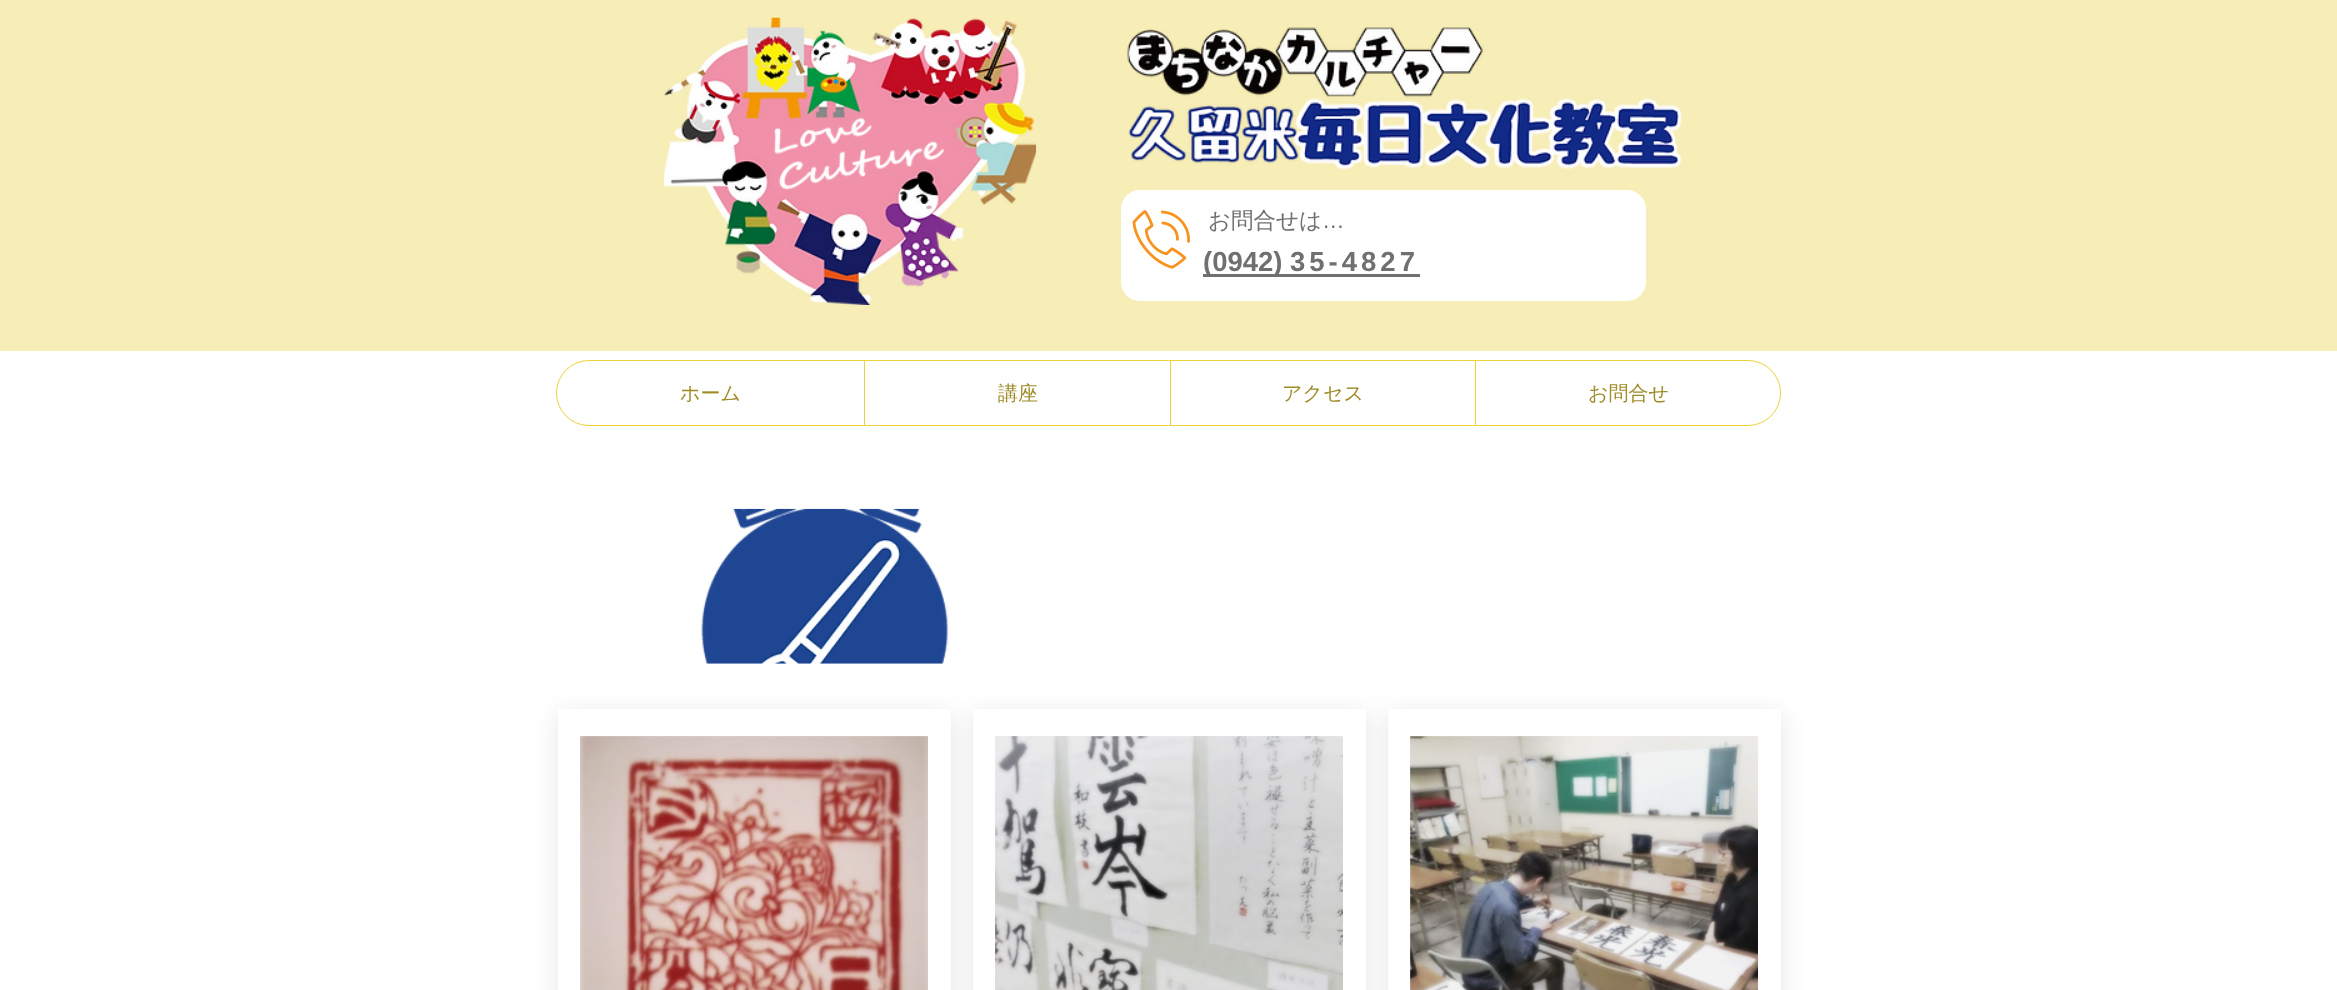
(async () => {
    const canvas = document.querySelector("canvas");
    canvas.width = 2337;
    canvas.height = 990;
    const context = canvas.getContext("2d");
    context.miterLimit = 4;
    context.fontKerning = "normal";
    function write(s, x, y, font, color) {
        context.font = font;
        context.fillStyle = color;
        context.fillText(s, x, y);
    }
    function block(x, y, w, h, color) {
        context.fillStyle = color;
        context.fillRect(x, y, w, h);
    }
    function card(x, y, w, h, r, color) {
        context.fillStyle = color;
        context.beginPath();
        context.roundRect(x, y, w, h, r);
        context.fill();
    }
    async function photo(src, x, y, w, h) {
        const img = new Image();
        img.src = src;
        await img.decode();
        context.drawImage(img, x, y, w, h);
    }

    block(0, 0, 2337, 990, "rgb(255, 255, 255)");
    block(0, 0, 2337, 351, "rgb(247, 237, 182)");
    await photo("media/1.png", 663, 17, 374, 288);
    await photo("media/2.png", 773, 117, 171, 73);
    await photo("media/3.png", 1127, 27, 555, 143);
    card(1121, 190, 525, 111, 19, "rgb(255, 255, 255)");
    await photo("media/4.png", 1132, 210, 58, 59);
    write("お問合せは", 1208, 228, "500 22.5px WenQuanYi Zen Hei", "rgb(112, 112, 112)");
    write("…", 1322, 228, "22.5px Liberation Sans", "rgb(112, 112, 112)");
    block(1203, 274, 217, 3, "rgb(112, 112, 112)");
    write("(0942)", 1203, 271, "bold 27.5px Liberation Sans", "rgb(112, 112, 112)");
    context.letterSpacing = "4px";
    write("35-4827", 1290, 271, "bold 27.5px Liberation Sans", "rgb(112, 112, 112)");
    context.beginPath();
    context.roundRect(556.5, 360.5, 1224, 65, 32.5);
    context.strokeStyle = "rgb(237, 210, 59)";
    context.stroke();
    context.letterSpacing = "0px";
    write("ホーム", 680, 400, "500 20px WenQuanYi Zen Hei", "rgb(158, 140, 40)");
    block(864, 361, 1, 64, "rgb(237, 210, 59)");
    write("講座", 998, 400, "500 20px WenQuanYi Zen Hei", "rgb(158, 140, 40)");
    block(1170, 361, 1, 64, "rgb(237, 210, 59)");
    write("アクセス", 1282, 400, "500 20px WenQuanYi Zen Hei", "rgb(158, 140, 40)");
    block(1475, 361, 1, 64, "rgb(237, 210, 59)");
    write("お問合せ", 1588, 400, "500 20px WenQuanYi Zen Hei", "rgb(158, 140, 40)");
    await photo("media/5.png", 701, 508, 249, 156);
    context.save();
    context.beginPath();
    context.moveTo(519, 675);
    context.lineTo(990, 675);
    context.lineTo(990, 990);
    context.lineTo(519, 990);
    context.closePath();
    context.moveTo(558, 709);
    context.lineTo(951, 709);
    context.lineTo(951, 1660);
    context.lineTo(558, 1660);
    context.closePath();
    context.clip("evenodd");
    context.fillStyle = "rgba(0, 0, 0, 0.1)";
    context.filter = "blur(12.5px)";
    context.beginPath();
    context.rect(558, 714, 393, 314);
    context.fill();
    context.filter = "none";
    context.restore();
    await photo("media/6.png", 580, 736, 348, 254);
    context.save();
    context.beginPath();
    context.moveTo(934, 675);
    context.lineTo(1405, 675);
    context.lineTo(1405, 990);
    context.lineTo(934, 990);
    context.closePath();
    context.moveTo(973, 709);
    context.lineTo(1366, 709);
    context.lineTo(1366, 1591);
    context.lineTo(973, 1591);
    context.closePath();
    context.clip("evenodd");
    context.fillStyle = "rgba(0, 0, 0, 0.1)";
    context.filter = "blur(12.5px)";
    context.beginPath();
    context.rect(973, 714, 393, 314);
    context.fill();
    context.filter = "none";
    context.restore();
    await photo("media/7.png", 995, 736, 348, 254);
    context.save();
    context.beginPath();
    context.moveTo(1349, 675);
    context.lineTo(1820, 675);
    context.lineTo(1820, 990);
    context.lineTo(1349, 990);
    context.closePath();
    context.moveTo(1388, 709);
    context.lineTo(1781, 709);
    context.lineTo(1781, 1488);
    context.lineTo(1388, 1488);
    context.closePath();
    context.clip("evenodd");
    context.fillStyle = "rgba(0, 0, 0, 0.1)";
    context.filter = "blur(12.5px)";
    context.beginPath();
    context.rect(1388, 714, 393, 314);
    context.fill();
    context.filter = "none";
    context.restore();
    await photo("media/8.png", 1410, 736, 348, 254);
})();
